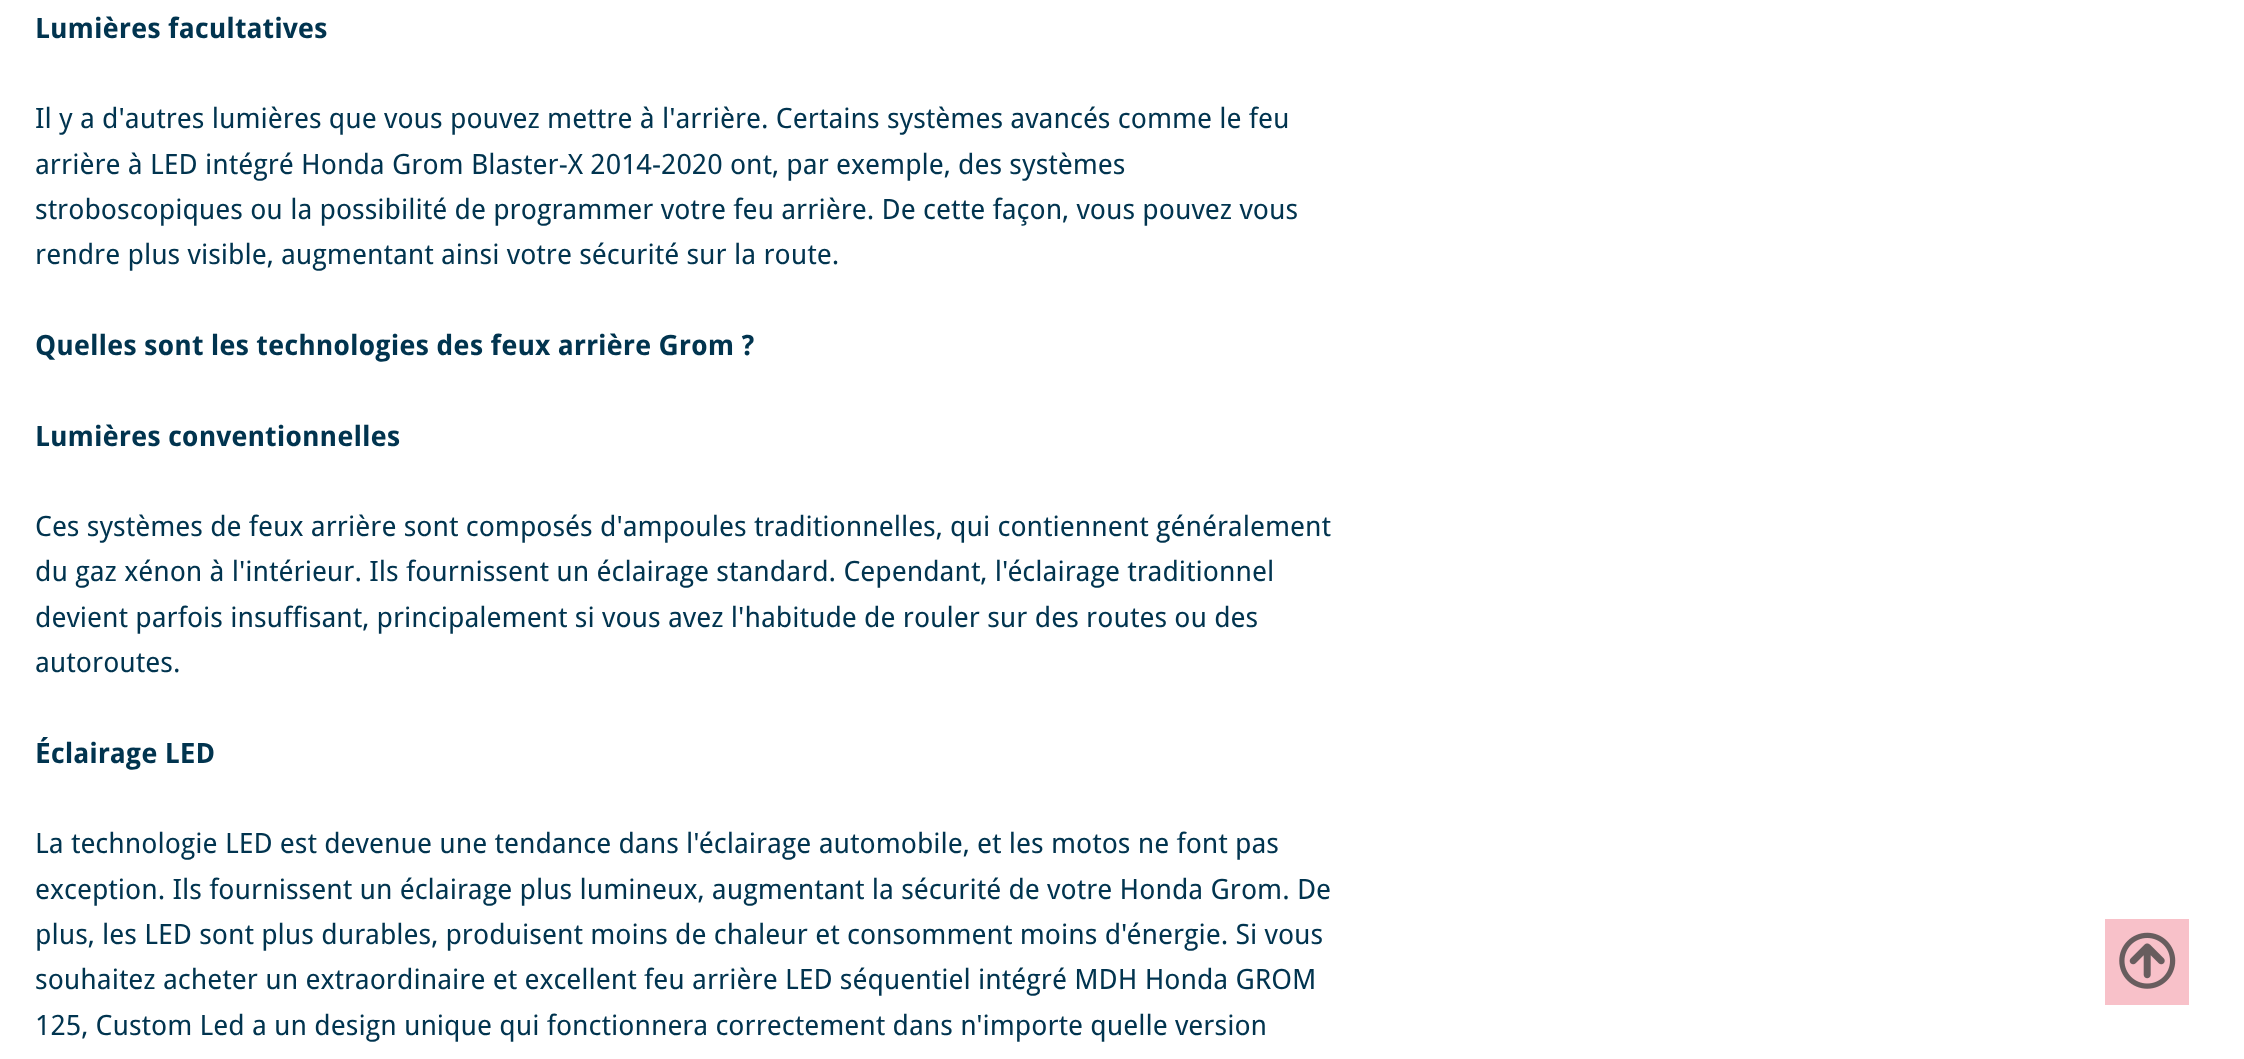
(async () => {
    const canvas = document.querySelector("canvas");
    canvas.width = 2244;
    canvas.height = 1059;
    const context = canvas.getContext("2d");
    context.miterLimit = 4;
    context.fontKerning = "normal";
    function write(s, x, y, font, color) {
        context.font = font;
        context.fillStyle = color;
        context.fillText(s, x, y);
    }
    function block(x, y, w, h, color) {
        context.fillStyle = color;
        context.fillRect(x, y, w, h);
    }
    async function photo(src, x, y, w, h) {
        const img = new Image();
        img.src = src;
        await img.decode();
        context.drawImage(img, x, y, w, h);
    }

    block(0, 0, 2244, 1059, "rgb(255, 255, 255)");
    write("Lumières facultatives", 35, 38, "bold 28px Droid Sans", "rgb(1, 52, 79)");
    write("Il y a d'autres lumières que vous pouvez mettre à l'arrière. Certains systèmes avancés comme le feu", 35, 128, "28px Droid Sans", "rgb(1, 52, 79)");
    write("arrière à LED intégré Honda Grom Blaster-X 2014-2020 ont, par exemple, des systèmes", 35, 174, "28px Droid Sans", "rgb(1, 52, 79)");
    write("stroboscopiques ou la possibilité de programmer votre feu arrière. De cette façon, vous pouvez vous", 35, 219, "28px Droid Sans", "rgb(1, 52, 79)");
    write("rendre plus visible, augmentant ainsi votre sécurité sur la route.", 35, 264, "28px Droid Sans", "rgb(1, 52, 79)");
    write("Quelles sont les technologies des feux arrière Grom ?", 35, 355, "bold 28px Droid Sans", "rgb(1, 52, 79)");
    write("Lumières conventionnelles", 35, 446, "bold 28px Droid Sans", "rgb(1, 52, 79)");
    write("Ces systèmes de feux arrière sont composés d'ampoules traditionnelles, qui contiennent généralement", 35, 536, "28px Droid Sans", "rgb(1, 52, 79)");
    write("du gaz xénon à l'intérieur. Ils fournissent un éclairage standard. Cependant, l'éclairage traditionnel", 35, 581, "28px Droid Sans", "rgb(1, 52, 79)");
    write("devient parfois insuffisant, principalement si vous avez l'habitude de rouler sur des routes ou des", 35, 627, "28px Droid Sans", "rgb(1, 52, 79)");
    write("autoroutes.", 35, 672, "28px Droid Sans", "rgb(1, 52, 79)");
    write("Éclairage LED", 35, 763, "bold 28px Droid Sans", "rgb(1, 52, 79)");
    write("La technologie LED est devenue une tendance dans l'éclairage automobile, et les motos ne font pas", 35, 853, "28px Droid Sans", "rgb(1, 52, 79)");
    write("exception. Ils fournissent un éclairage plus lumineux, augmentant la sécurité de votre Honda Grom. De", 35, 899, "28px Droid Sans", "rgb(1, 52, 79)");
    write("plus, les LED sont plus durables, produisent moins de chaleur et consomment moins d'énergie. Si vous", 35, 944, "28px Droid Sans", "rgb(1, 52, 79)");
    write("souhaitez acheter un extraordinaire et excellent feu arrière LED séquentiel intégré MDH Honda GROM", 35, 989, "28px Droid Sans", "rgb(1, 52, 79)");
    write("125, Custom Led a un design unique qui fonctionnera correctement dans n'importe quelle version", 35, 1035, "28px Droid Sans", "rgb(1, 52, 79)");
    block(2105, 919, 84, 86, "rgb(248, 193, 201)");
    await photo("media/1.png", 2119, 932, 57, 57);
})();
